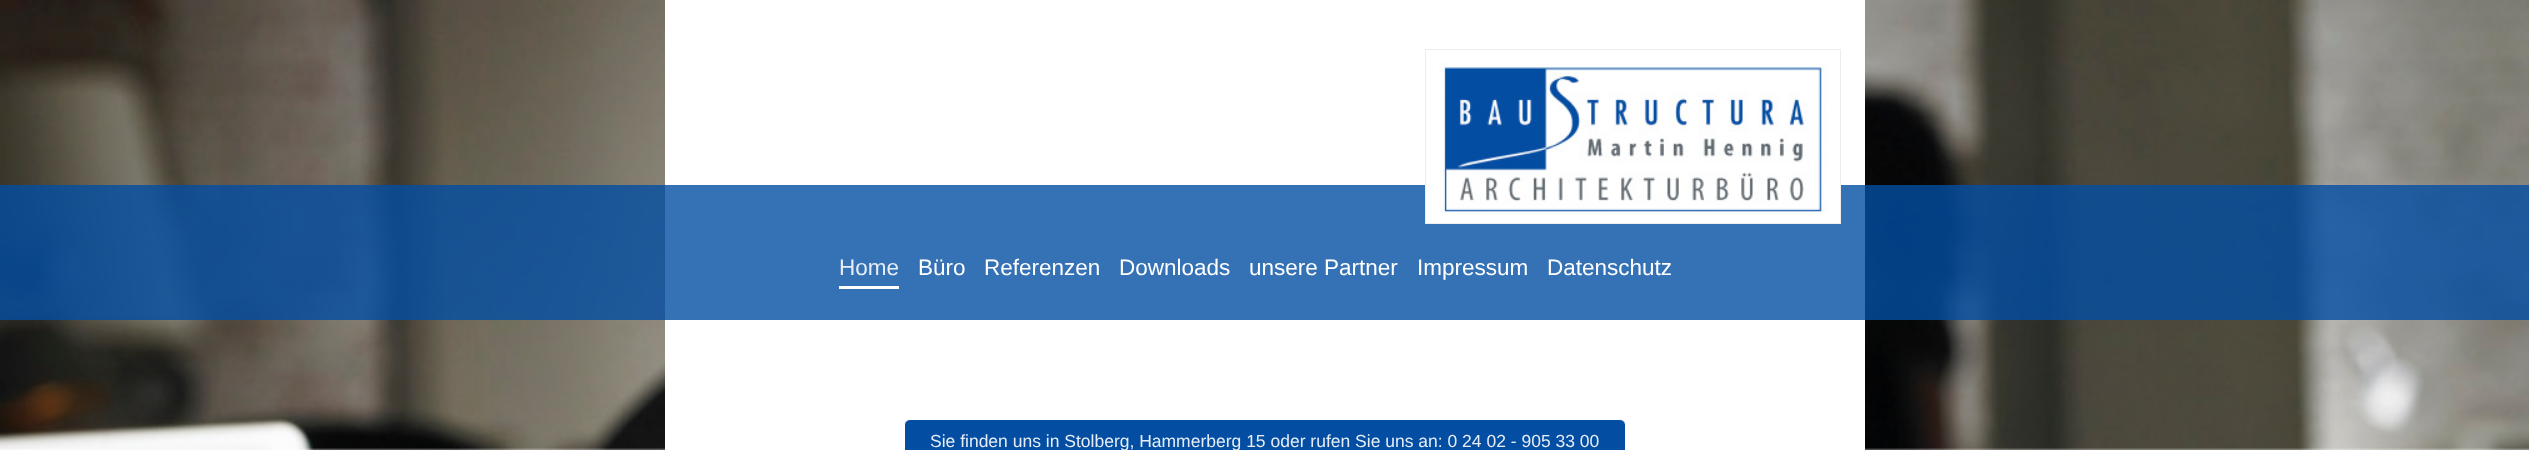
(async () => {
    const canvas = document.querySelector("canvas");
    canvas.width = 2529;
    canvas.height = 450;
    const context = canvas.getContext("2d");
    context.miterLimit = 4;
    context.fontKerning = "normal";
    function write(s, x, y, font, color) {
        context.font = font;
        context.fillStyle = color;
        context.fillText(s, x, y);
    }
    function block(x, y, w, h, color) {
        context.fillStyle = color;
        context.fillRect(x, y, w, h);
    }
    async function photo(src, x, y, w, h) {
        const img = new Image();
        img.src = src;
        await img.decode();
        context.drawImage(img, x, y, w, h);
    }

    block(0, 0, 2529, 450, "rgb(255, 255, 255)");
    await photo("media/1.png", 0, 0, 2529, 450);
    block(665, 0, 1200, 450, "rgb(255, 255, 255)");
    block(0, 185, 2529, 135, "rgba(3, 78, 162, 0.8)");
    context.strokeStyle = "rgb(237, 237, 237)";
    context.strokeRect(1425.5, 49.5, 415, 174);
    block(1426, 185, 414, 38, "rgb(255, 255, 255)");
    await photo("media/2.png", 1439, 62, 389, 151);
    block(839, 286, 60, 3, "rgb(255, 255, 255)");
    write("Home", 839, 275, "22.5px Liberation Sans", "rgb(230, 237, 246)");
    write("Büro", 918, 275, "22.5px Liberation Sans", "rgb(255, 255, 255)");
    write("Referenzen", 984, 275, "22.5px Liberation Sans", "rgb(255, 255, 255)");
    write("Downloads", 1119, 275, "22.5px Liberation Sans", "rgb(255, 255, 255)");
    write("unsere Partner", 1249, 275, "22.5px Liberation Sans", "rgb(255, 255, 255)");
    write("Impressum", 1417, 275, "22.5px Liberation Sans", "rgb(255, 255, 255)");
    write("Datenschutz", 1547, 275, "22.5px Liberation Sans", "rgb(255, 255, 255)");
    context.fillStyle = "rgb(3, 78, 162)";
    context.beginPath();
    context.roundRect(904.5, 419.5, 721, 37, 5.5);
    context.fill();
    context.strokeStyle = "rgb(255, 255, 255)";
    context.stroke();
    write("Sie finden uns in Stolberg, Hammerberg 15 oder rufen Sie uns an: 0 24 02 - 905 33 00", 930, 447, "17.5px Liberation Sans", "rgb(230, 237, 246)");
})();
